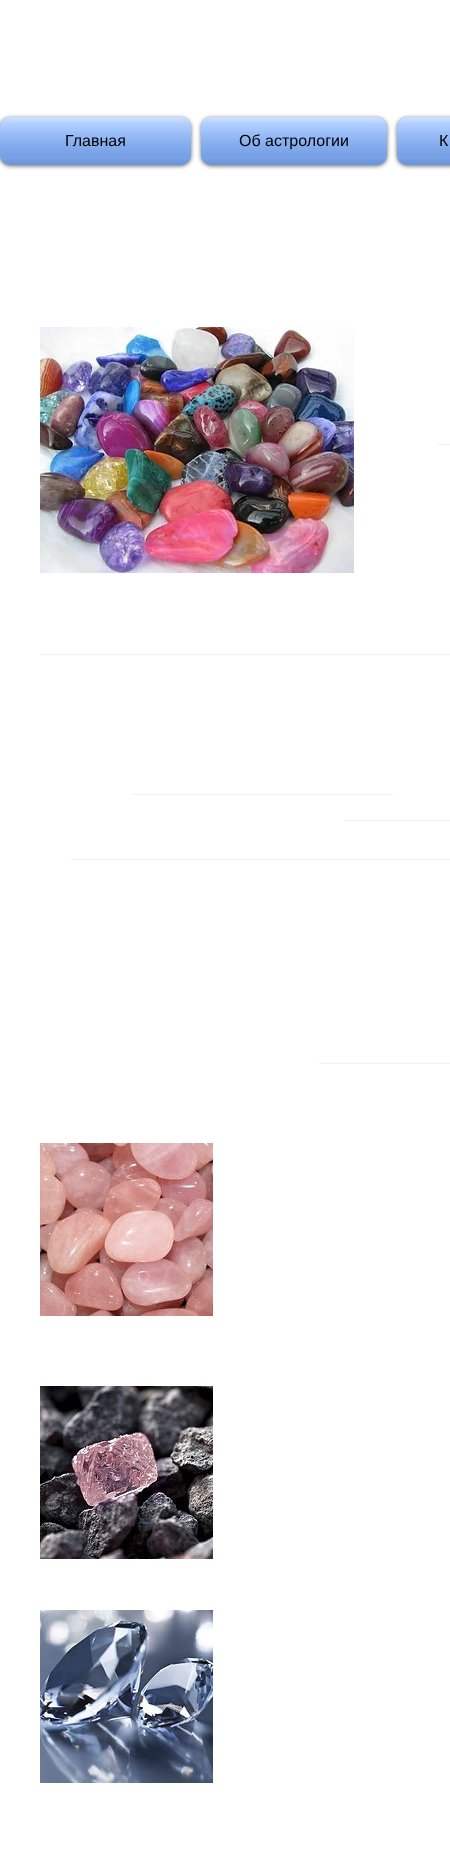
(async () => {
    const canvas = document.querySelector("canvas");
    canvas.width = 450;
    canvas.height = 1862;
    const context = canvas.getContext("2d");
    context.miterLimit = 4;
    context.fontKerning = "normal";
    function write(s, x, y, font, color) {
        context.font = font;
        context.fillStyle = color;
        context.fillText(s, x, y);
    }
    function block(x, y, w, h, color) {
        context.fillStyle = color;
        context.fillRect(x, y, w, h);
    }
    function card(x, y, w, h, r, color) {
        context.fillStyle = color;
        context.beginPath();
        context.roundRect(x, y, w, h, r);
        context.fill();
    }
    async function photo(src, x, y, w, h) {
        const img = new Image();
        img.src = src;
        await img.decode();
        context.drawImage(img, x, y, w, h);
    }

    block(0, 0, 450, 1862, "rgb(255, 255, 255)");
    context.fillStyle = "rgba(0, 0, 0, 0.6)";
    context.filter = "blur(2px)";
    context.beginPath();
    context.roundRect(0, 118, 191, 48, 10);
    context.fill();
    context.filter = "none";
    card(0, 117, 191, 48, 10, "rgb(128, 176, 255)");
    await photo("media/1.png", 0, 117, 191, 43);
    await photo("media/2.png", 0, 131, 191, 34);
    write("Главная", 65, 146, "16px Liberation Sans", "rgb(0, 0, 0)");
    context.fillStyle = "rgba(0, 0, 0, 0.6)";
    context.filter = "blur(2px)";
    context.beginPath();
    context.roundRect(201, 118, 186, 48, 10);
    context.fill();
    context.filter = "none";
    card(201, 117, 186, 48, 10, "rgb(128, 176, 255)");
    await photo("media/3.png", 201, 117, 186, 43);
    await photo("media/4.png", 201, 131, 186, 34);
    write("Об астрологии", 239, 146, "16px Liberation Sans", "rgb(0, 0, 0)");
    context.fillStyle = "rgba(0, 0, 0, 0.6)";
    context.filter = "blur(2px)";
    context.beginPath();
    context.roundRect(397, 118, 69, 48, 10);
    context.fill();
    context.filter = "none";
    card(397, 117, 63, 48, 10, "rgb(128, 176, 255)");
    await photo("media/5.png", 397, 117, 53, 43);
    await photo("media/6.png", 397, 131, 53, 34);
    write("К", 439, 146, "16px Liberation Sans", "rgb(0, 0, 0)");
    await photo("media/7.png", 40, 327, 314, 246);
    block(437, 444, 13, 1, "rgb(243, 243, 243)");
    block(40, 654, 410, 1, "rgb(243, 243, 243)");
    block(131, 794, 262, 1, "rgb(243, 243, 243)");
    block(344, 820, 106, 1, "rgb(243, 243, 243)");
    block(70, 859, 380, 1, "rgb(243, 243, 243)");
    block(319, 1063, 131, 1, "rgb(243, 243, 243)");
    await photo("media/8.png", 40, 1143, 173, 173);
    await photo("media/9.png", 40, 1386, 173, 173);
    await photo("media/10.png", 40, 1610, 173, 173);
})();
